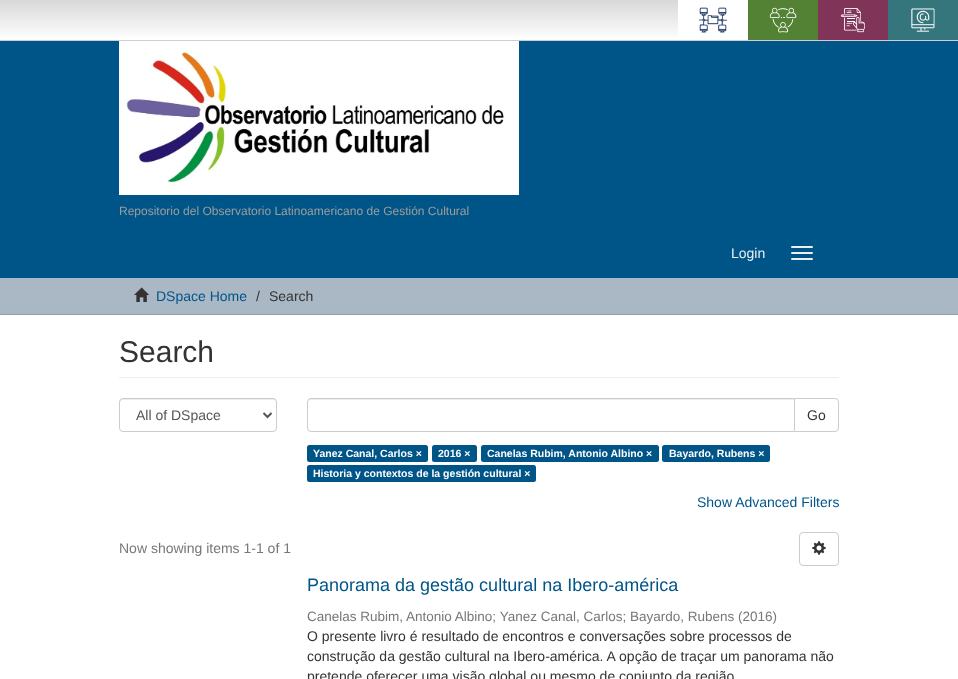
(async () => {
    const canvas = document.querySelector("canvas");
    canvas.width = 958;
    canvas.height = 679;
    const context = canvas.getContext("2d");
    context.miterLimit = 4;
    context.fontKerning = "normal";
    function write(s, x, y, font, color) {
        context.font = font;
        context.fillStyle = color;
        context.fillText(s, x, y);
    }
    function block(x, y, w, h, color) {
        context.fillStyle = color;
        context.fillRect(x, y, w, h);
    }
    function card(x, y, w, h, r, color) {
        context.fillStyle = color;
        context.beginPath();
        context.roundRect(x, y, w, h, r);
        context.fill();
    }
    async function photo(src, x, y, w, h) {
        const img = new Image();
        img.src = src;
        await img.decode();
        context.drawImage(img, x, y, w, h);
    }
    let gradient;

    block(0, 0, 958, 679, "rgb(255, 255, 255)");
    gradient = context.createLinearGradient(479, 0, 479, 40);
    gradient.addColorStop(0, "rgb(0, 0, 0)");
    gradient.addColorStop(0, "rgb(216, 216, 216)");
    gradient.addColorStop(1, "rgb(255, 255, 255)");
    context.fillStyle = gradient;
    context.fillRect(0, 0, 678, 37);
    block(0, 40, 958, 1, "rgb(206, 206, 206)");
    await photo("media/1.png", 698, 7, 30, 26);
    block(748, 0, 70, 40, "rgb(84, 130, 53)");
    await photo("media/2.png", 769, 7, 28, 26);
    block(818, 0, 70, 40, "rgb(127, 52, 88)");
    await photo("media/3.png", 840, 8, 25, 25);
    block(888, 0, 70, 40, "rgb(53, 117, 124)");
    await photo("media/4.png", 911, 8, 24, 24);
    block(0, 41, 958, 237, "rgb(0, 85, 136)");
    await photo("media/5.png", 119, 41, 400, 154);
    write("Repositorio del Observatorio Latinoamericano de Gestión Cultural", 119, 215, "12px Liberation Sans", "rgb(157, 157, 157)");
    write("Login", 731, 258, "14px Liberation Sans", "rgb(238, 238, 238)");
    card(791, 246, 22, 2, 1, "rgb(238, 238, 238)");
    card(791, 252, 22, 2, 1, "rgb(238, 238, 238)");
    card(791, 258, 22, 2, 1, "rgb(238, 238, 238)");
    block(0, 278, 958, 36, "rgb(170, 184, 198)");
    block(0, 314, 958, 1, "rgb(139, 158, 178)");
    await photo("media/6.png", 134, 287, 15, 15);
    write("DSpace Home", 156, 301, "14px Liberation Sans", "rgb(0, 85, 136)");
    write("/", 256, 301, "14px Liberation Sans", "rgb(51, 51, 51)");
    write("Search", 269, 301, "14px Liberation Sans", "rgb(51, 51, 51)");
    block(119, 377, 720, 1, "rgb(238, 238, 238)");
    write("Search", 119, 362, "30px Liberation Sans", "rgb(51, 51, 51)");
    context.fillStyle = "rgb(236, 236, 236)";
    context.beginPath();
    context.moveTo(123, 400);
    context.lineTo(273, 400);
    context.bezierCurveTo(275, 400, 276, 401, 276, 403);
    context.bezierCurveTo(276, 401, 275, 399, 273, 399);
    context.lineTo(122, 399);
    context.bezierCurveTo(120, 399, 120, 401, 120, 403);
    context.bezierCurveTo(120, 401, 121, 400, 123, 400);
    context.closePath();
    context.fill();
    context.beginPath();
    context.roundRect(119.5, 398.5, 157, 33, 3.5);
    context.strokeStyle = "rgb(204, 204, 204)";
    context.stroke();
    context.beginPath();
    context.moveTo(263.5, 413);
    context.lineTo(267.5, 417);
    context.lineTo(271.5, 413);
    context.strokeStyle = "rgb(85, 85, 85)";
    context.lineWidth = 2;
    context.stroke();
    write("All of DSpace", 136, 420, "14px Liberation Sans", "rgb(85, 85, 85)");
    context.beginPath();
    context.roundRect(794.5, 398.5, 44, 33, [0, 3.5, 3.5, 0]);
    context.strokeStyle = "rgb(204, 204, 204)";
    context.lineWidth = 1;
    context.stroke();
    context.fillStyle = "rgb(255, 255, 255)";
    context.beginPath();
    context.roundRect(307, 398, 488, 34, [4, 0, 0, 4]);
    context.fill();
    context.fillStyle = "rgb(236, 236, 236)";
    context.beginPath();
    context.moveTo(311, 400);
    context.lineTo(794, 400);
    context.lineTo(794, 399);
    context.lineTo(311, 399);
    context.bezierCurveTo(309, 399, 308, 401, 308, 403);
    context.bezierCurveTo(308, 401, 309, 400, 311, 400);
    context.closePath();
    context.fill();
    context.beginPath();
    context.roundRect(307.5, 398.5, 487, 33, [3.5, 0, 0, 3.5]);
    context.stroke();
    write("Go", 807, 420, "14px Liberation Sans", "rgb(51, 51, 51)");
    card(307, 445, 121, 17, 2.5, "rgb(0, 85, 136)");
    write("Yanez Canal, Carlos ×", 313, 457, "bold 10.5px Liberation Sans", "rgb(255, 255, 255)");
    card(432, 445, 45, 17, 2.5, "rgb(0, 85, 136)");
    write("2016 ×", 438, 457, "bold 10.5px Liberation Sans", "rgb(255, 255, 255)");
    card(481, 445, 178, 17, 2.5, "rgb(0, 85, 136)");
    write("Canelas Rubim, Antonio Albino ×", 487, 457, "bold 10.5px Liberation Sans", "rgb(255, 255, 255)");
    card(662, 445, 108, 17, 2.5, "rgb(0, 85, 136)");
    write("Bayardo, Rubens ×", 669, 457, "bold 10.5px Liberation Sans", "rgb(255, 255, 255)");
    card(307, 465, 229, 17, 2.5, "rgb(0, 85, 136)");
    write("Historia y contextos de la gestión cultural ×", 313, 477, "bold 10.5px Liberation Sans", "rgb(255, 255, 255)");
    write("Show Advanced Filters", 697, 507, "14px Liberation Sans", "rgb(0, 85, 136)");
    write("Now showing items 1-1 of 1", 119, 553, "14px Liberation Sans", "rgb(119, 119, 119)");
    context.beginPath();
    context.roundRect(799.5, 532.5, 39, 33, 3.5);
    context.stroke();
    await photo("media/7.png", 812, 541, 14, 14);
    write("Panorama da gestão cultural na Ibero-américa", 307, 591, "18px Liberation Sans", "rgb(0, 85, 136)");
    write("Canelas Rubim, Antonio Albino; Yanez Canal, Carlos; Bayardo, Rubens (2016)", 307, 621, "13.5px Liberation Sans", "rgb(119, 119, 119)");
    write("O presente livro é resultado de encontros e conversações sobre processos de", 307, 641, "14px Liberation Sans", "rgb(51, 51, 51)");
    write("construção da gestão cultural na Ibero-américa. A opção de traçar um panorama não", 307, 661, "14px Liberation Sans", "rgb(51, 51, 51)");
    write("pretende oferecer uma visão global ou mesmo de conjunto da região", 307, 681, "14px Liberation Sans", "rgb(51, 51, 51)");
})();
